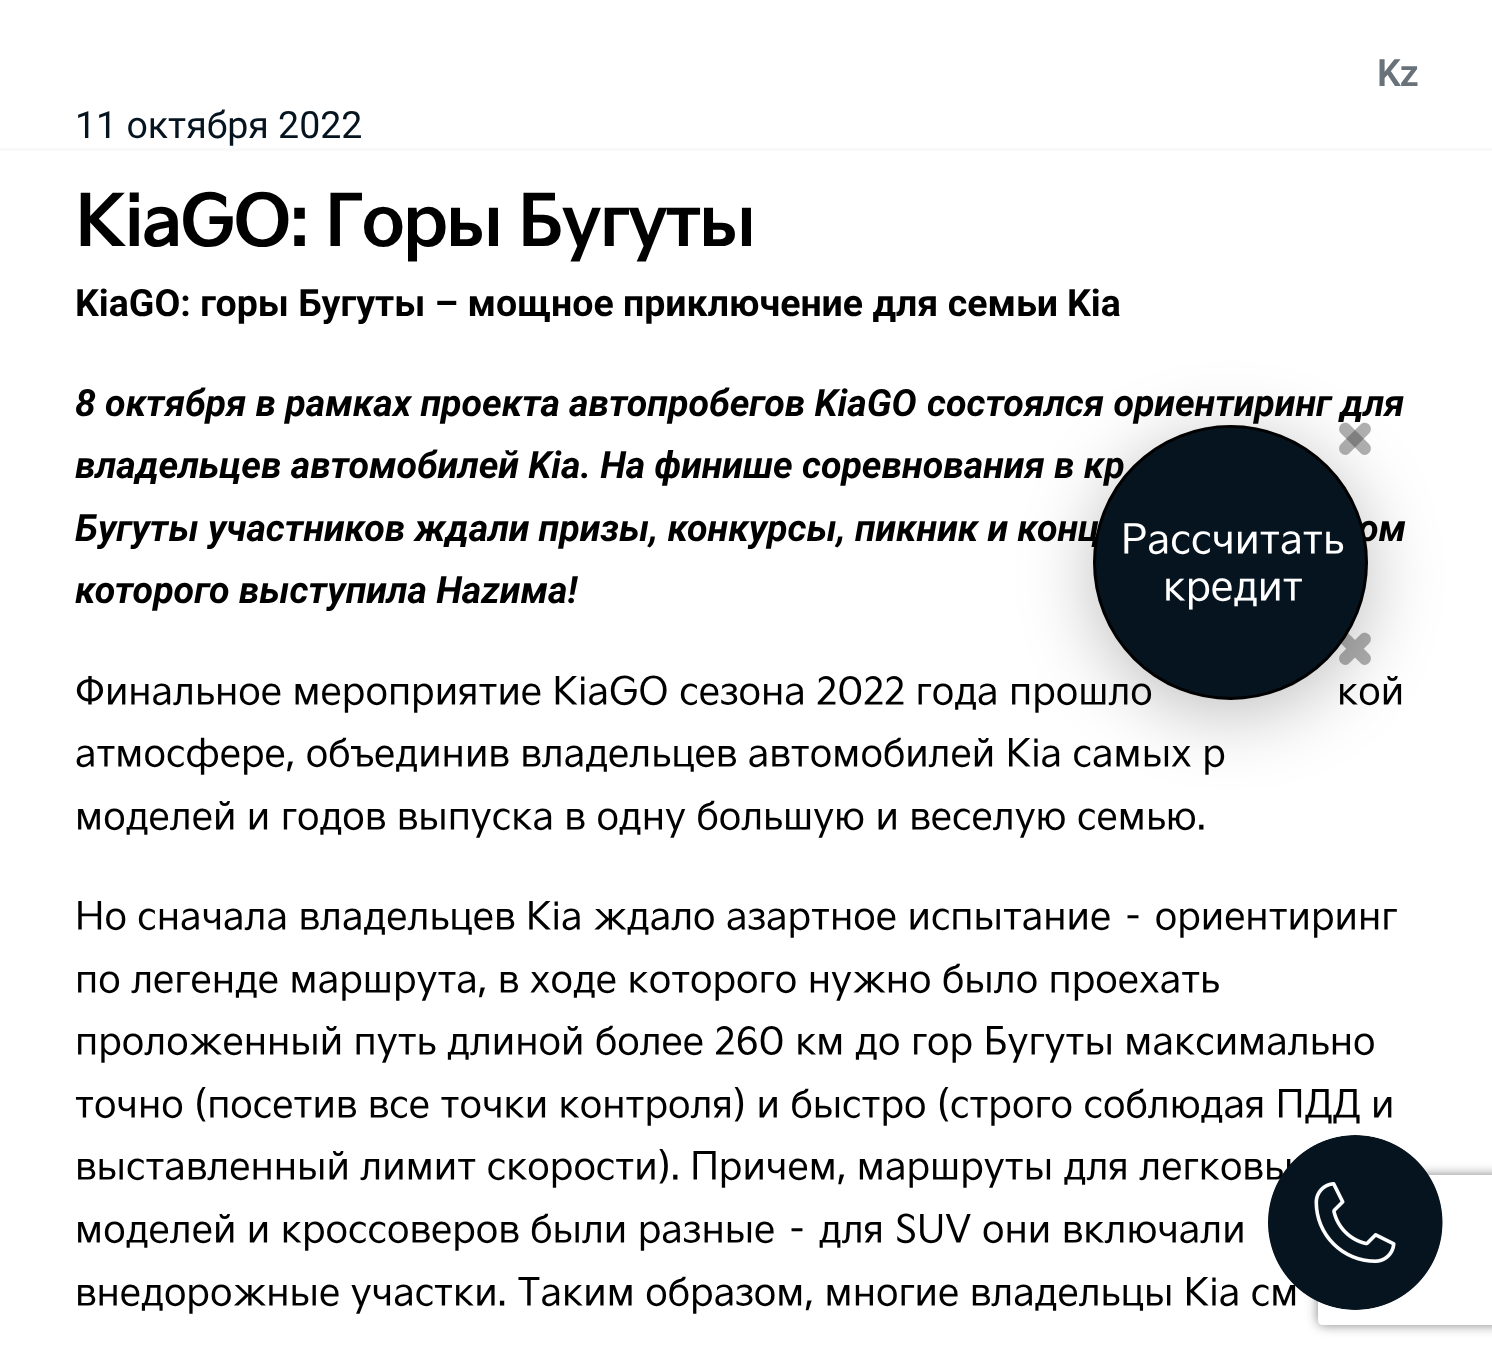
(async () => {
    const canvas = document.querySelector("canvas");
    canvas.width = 1492;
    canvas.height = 1360;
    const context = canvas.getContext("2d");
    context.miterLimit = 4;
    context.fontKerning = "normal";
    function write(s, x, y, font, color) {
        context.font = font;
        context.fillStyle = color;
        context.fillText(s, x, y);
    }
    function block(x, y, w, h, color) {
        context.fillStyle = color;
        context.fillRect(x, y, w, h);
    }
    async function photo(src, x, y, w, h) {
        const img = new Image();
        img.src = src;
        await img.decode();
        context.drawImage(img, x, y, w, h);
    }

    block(0, 0, 1492, 1360, "rgb(255, 255, 255)");
    block(0, 148, 1492, 3, "rgb(249, 249, 249)");
    context.letterSpacing = "-1px";
    write("Kz", 1377, 86, "600 37.5px Roboto", "rgb(105, 114, 121)");
    context.letterSpacing = "0px";
    write("11 октября 2022", 75, 138, "37.5px Roboto", "rgb(5, 20, 31)");
    context.letterSpacing = "-2.5px";
    write("KiaGO: Горы Бугуты", 75, 245, "bold 70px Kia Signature", "rgb(0, 0, 0)");
    context.letterSpacing = "0px";
    write("KiaGO: горы Бугуты – мощное приключение для семьи", 75, 316, "bold 37.5px Roboto", "rgb(0, 0, 0)");
    write("Kia", 1067, 316, "bold 37.5px Roboto", "rgb(0, 0, 0)");
    write("8 октября в рамках проекта автопробегов KiaGO", 75, 416, "italic bold 37.5px Roboto", "rgb(0, 0, 0)");
    write("состоялся ориентиринг для", 927, 416, "italic bold 37.5px Roboto", "rgb(0, 0, 0)");
    write("владельцев автомобилей Kia. На финише соревнования в кр", 75, 478, "italic bold 37.5px Roboto", "rgb(0, 0, 0)");
    write("Бугуты участников ждали призы, конкурсы, пикник и конц", 75, 541, "italic bold 37.5px Roboto", "rgb(0, 0, 0)");
    write("ом", 1358, 541, "italic bold 37.5px Roboto", "rgb(0, 0, 0)");
    write("которого выступила Наzима!", 75, 603, "italic bold 37.5px Roboto", "rgb(0, 0, 0)");
    write("Финальное мероприятие KiaGO сезона 2022 года прошло", 75, 704, "37.5px Kia Signature", "rgb(0, 0, 0)");
    write("кой", 1337, 704, "37.5px Kia Signature", "rgb(0, 0, 0)");
    write("атмосфере, объединив владельцев автомобилей Kia самых р", 75, 766, "37.5px Kia Signature", "rgb(0, 0, 0)");
    write("моделей и годов выпуска в одну большую и веселую семью.", 75, 829, "37.5px Kia Signature", "rgb(0, 0, 0)");
    write("Но сначала владельцев Kia ждало азартное испытание – ориентиринг", 75, 929, "37.5px Kia Signature", "rgb(0, 0, 0)");
    write("по легенде маршрута, в ходе которого нужно было проехать", 75, 992, "37.5px Kia Signature", "rgb(0, 0, 0)");
    write("проложенный путь длиной более 260 км до гор Бугуты максимально", 75, 1054, "37.5px Kia Signature", "rgb(0, 0, 0)");
    write("точно (посетив все точки контроля) и быстро (строго соблюдая ПДД и", 75, 1117, "37.5px Kia Signature", "rgb(0, 0, 0)");
    write("выставленный лимит скорости). Причем, маршруты для легковы", 75, 1179, "37.5px Kia Signature", "rgb(0, 0, 0)");
    write("моделей и кроссоверов были разные – для SUV они включали", 75, 1242, "37.5px Kia Signature", "rgb(0, 0, 0)");
    write("внедорожные участки. Таким образом, многие владельцы Kia см", 75, 1305, "37.5px Kia Signature", "rgb(0, 0, 0)");
    context.fillStyle = "rgb(176, 176, 176)";
    context.beginPath();
    context.moveTo(1349.5, 634.5);
    context.lineTo(1369, 654);
    context.bezierCurveTo(1371.5, 656.5, 1371.5, 660.5, 1369, 663);
    context.bezierCurveTo(1366.5, 665.5, 1362.5, 665.5, 1360.5, 663);
    context.lineTo(1341, 643.5);
    context.bezierCurveTo(1338.5, 641, 1338.5, 637, 1341, 634.5);
    context.bezierCurveTo(1343.5, 632, 1347.5, 632, 1349.5, 634.5);
    context.closePath();
    context.fill();
    context.beginPath();
    context.moveTo(1341, 654);
    context.lineTo(1360.5, 634.5);
    context.bezierCurveTo(1362.5, 632, 1366.5, 632, 1369, 634.5);
    context.bezierCurveTo(1371.5, 637, 1371.5, 641, 1369, 643.5);
    context.lineTo(1349.5, 663);
    context.bezierCurveTo(1347.5, 665.5, 1343.5, 665.5, 1341, 663);
    context.bezierCurveTo(1338.5, 660.5, 1338.5, 656.5, 1341, 654);
    context.closePath();
    context.fill();
    await photo("media/1.png", 1221, 683, 116, 85);
    context.fillStyle = "rgba(0, 0, 0, 0.26)";
    context.filter = "blur(37.5px)";
    context.beginPath();
    context.roundRect(1093, 438, 275, 275, 137.5);
    context.fill();
    context.filter = "none";
    context.fillStyle = "rgb(5, 20, 31)";
    context.beginPath();
    context.arc(1230.5, 562.5, 136, 0, Math.PI * 2);
    context.fill();
    context.strokeStyle = "rgb(0, 0, 0)";
    context.lineWidth = 3;
    context.stroke();
    context.fillStyle = "rgba(57, 57, 57, 0.4)";
    context.beginPath();
    context.moveTo(1349.5, 424.5);
    context.lineTo(1369, 444);
    context.bezierCurveTo(1371.5, 446.5, 1371.5, 450.5, 1369, 453);
    context.bezierCurveTo(1366.5, 455.5, 1362.5, 455.5, 1360.5, 453);
    context.lineTo(1341, 433.5);
    context.bezierCurveTo(1338.5, 431, 1338.5, 427, 1341, 424.5);
    context.bezierCurveTo(1343.5, 422, 1347.5, 422, 1349.5, 424.5);
    context.closePath();
    context.fill();
    context.beginPath();
    context.moveTo(1341, 444);
    context.lineTo(1360.5, 424.5);
    context.bezierCurveTo(1362.5, 422, 1366.5, 422, 1369, 424.5);
    context.bezierCurveTo(1371.5, 427, 1371.5, 431, 1369, 433.5);
    context.lineTo(1349.5, 453);
    context.bezierCurveTo(1347.5, 455.5, 1343.5, 455.5, 1341, 453);
    context.bezierCurveTo(1338.5, 450.5, 1338.5, 446.5, 1341, 444);
    context.closePath();
    context.fill();
    write("Рассчитать", 1121, 553, "40px Kia Signature", "rgb(255, 255, 255)");
    write("кредит", 1163, 600, "40px Kia Signature", "rgb(255, 255, 255)");
    context.save();
    context.beginPath();
    context.moveTo(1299, 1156);
    context.lineTo(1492, 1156);
    context.lineTo(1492, 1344);
    context.lineTo(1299, 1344);
    context.closePath();
    context.moveTo(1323, 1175);
    context.lineTo(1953, 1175);
    context.bezierCurveTo(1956, 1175, 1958, 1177, 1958, 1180);
    context.lineTo(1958, 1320);
    context.bezierCurveTo(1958, 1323, 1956, 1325, 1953, 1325);
    context.lineTo(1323, 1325);
    context.bezierCurveTo(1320, 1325, 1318, 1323, 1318, 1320);
    context.lineTo(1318, 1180);
    context.bezierCurveTo(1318, 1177, 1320, 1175, 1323, 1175);
    context.closePath();
    context.clip("evenodd");
    context.fillStyle = "rgb(128, 128, 128)";
    context.filter = "blur(6px)";
    context.beginPath();
    context.roundRect(1318, 1175, 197, 150, 5);
    context.fill();
    context.filter = "none";
    context.restore();
    await photo("media/2.png", 1268, 1135, 175, 175);
})();
